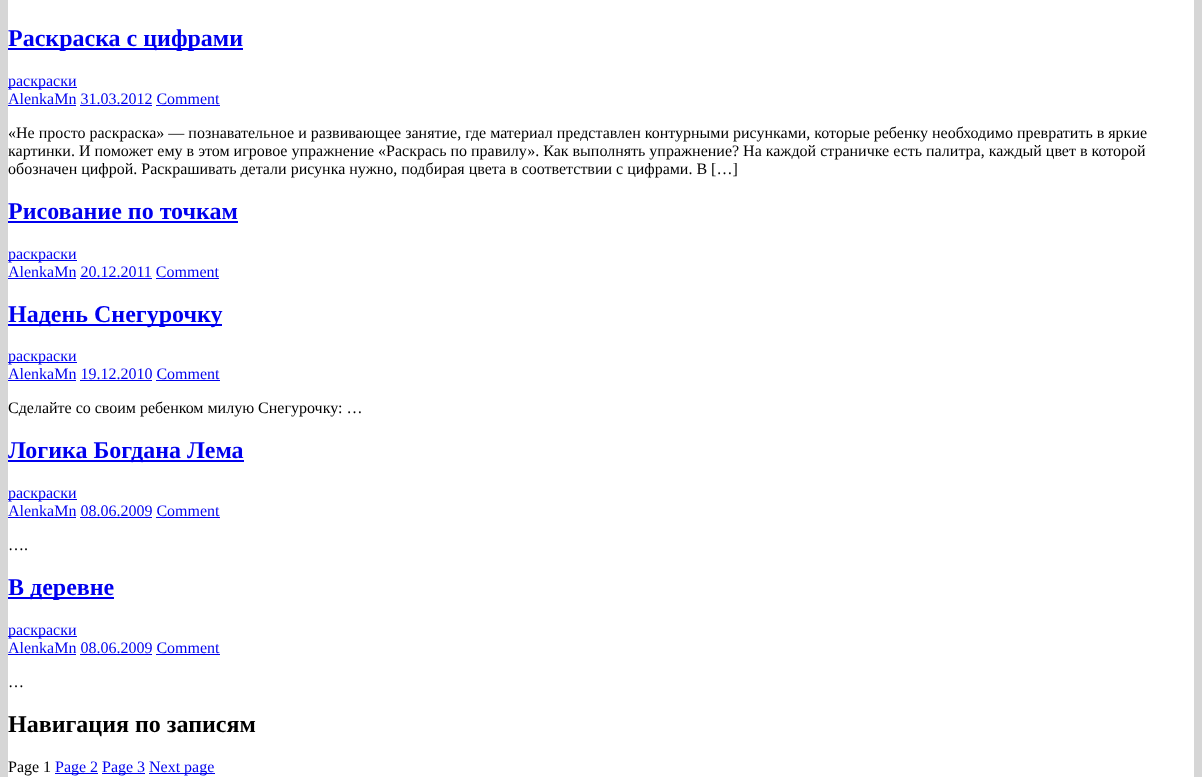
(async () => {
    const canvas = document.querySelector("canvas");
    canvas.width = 1202;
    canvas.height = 777;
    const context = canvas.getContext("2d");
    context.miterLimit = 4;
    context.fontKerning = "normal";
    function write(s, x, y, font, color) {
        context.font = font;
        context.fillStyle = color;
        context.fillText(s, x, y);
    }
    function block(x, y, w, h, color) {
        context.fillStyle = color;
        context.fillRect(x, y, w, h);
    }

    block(0, 0, 1202, 777, "rgb(214, 214, 214)");
    block(8, 0, 1186, 777, "rgb(255, 255, 255)");
    block(8, 48, 235, 2, "rgb(0, 0, 238)");
    write("Раскраска с цифрами", 8, 46, "bold 24px Liberation Serif", "rgb(0, 0, 238)");
    block(8, 87, 69, 1, "rgb(0, 0, 238)");
    write("раскраски", 8, 86, "16px Liberation Serif", "rgb(0, 0, 238)");
    write("AlenkaMn 31.03.2012 Comment", 8, 104, "16px Liberation Serif", "rgb(0, 0, 238)");
    block(8, 105, 68, 1, "rgb(0, 0, 238)");
    block(80, 105, 72, 1, "rgb(0, 0, 238)");
    block(156, 105, 64, 1, "rgb(0, 0, 238)");
    write("«Не просто раскраска» — познавательное и развивающее занятие, где материал представлен контурными рисунками, которые ребенку необходимо превратить в яркие", 8, 138, "16px Liberation Serif", "rgb(0, 0, 0)");
    write("картинки. И поможет ему в этом игровое упражнение «Раскрась по правилу». Как выполнять упражнение? На каждой страничке есть палитра, каждый цвет в которой", 8, 156, "16px Liberation Serif", "rgb(0, 0, 0)");
    write("обозначен цифрой. Раскрашивать детали рисунка нужно, подбирая цвета в соответствии с цифрами. В […]", 8, 174, "16px Liberation Serif", "rgb(0, 0, 0)");
    write("Рисование по точкам", 8, 219, "bold 24px Liberation Serif", "rgb(0, 0, 238)");
    block(8, 221, 230, 2, "rgb(0, 0, 238)");
    block(8, 260, 69, 1, "rgb(0, 0, 238)");
    write("раскраски", 8, 259, "16px Liberation Serif", "rgb(0, 0, 238)");
    write("AlenkaMn 20.12.2011 Comment", 8, 277, "16px Liberation Serif", "rgb(0, 0, 238)");
    block(8, 278, 68, 1, "rgb(0, 0, 238)");
    block(80, 278, 72, 1, "rgb(0, 0, 238)");
    block(156, 278, 63, 1, "rgb(0, 0, 238)");
    block(8, 324, 214, 2, "rgb(0, 0, 238)");
    write("Надень Снегурочку", 8, 322, "bold 24px Liberation Serif", "rgb(0, 0, 238)");
    block(8, 362, 69, 1, "rgb(0, 0, 238)");
    write("раскраски", 8, 361, "16px Liberation Serif", "rgb(0, 0, 238)");
    write("AlenkaMn 19.12.2010 Comment", 8, 379, "16px Liberation Serif", "rgb(0, 0, 238)");
    block(8, 380, 68, 1, "rgb(0, 0, 238)");
    block(80, 380, 72, 1, "rgb(0, 0, 238)");
    block(156, 380, 64, 1, "rgb(0, 0, 238)");
    write("Сделайте со своим ребенком милую Снегурочку: …", 8, 413, "16px Liberation Serif", "rgb(0, 0, 0)");
    block(8, 460, 236, 2, "rgb(0, 0, 238)");
    write("Логика Богдана Лема", 8, 458, "bold 24px Liberation Serif", "rgb(0, 0, 238)");
    block(8, 499, 69, 1, "rgb(0, 0, 238)");
    write("раскраски", 8, 498, "16px Liberation Serif", "rgb(0, 0, 238)");
    write("AlenkaMn 08.06.2009 Comment", 8, 516, "16px Liberation Serif", "rgb(0, 0, 238)");
    block(8, 517, 68, 1, "rgb(0, 0, 238)");
    block(80, 517, 72, 1, "rgb(0, 0, 238)");
    block(156, 517, 64, 1, "rgb(0, 0, 238)");
    write("….", 8, 550, "16px Liberation Serif", "rgb(0, 0, 0)");
    block(8, 597, 106, 2, "rgb(0, 0, 238)");
    write("В деревне", 8, 595, "bold 24px Liberation Serif", "rgb(0, 0, 238)");
    block(8, 636, 69, 1, "rgb(0, 0, 238)");
    write("раскраски", 8, 635, "16px Liberation Serif", "rgb(0, 0, 238)");
    write("AlenkaMn 08.06.2009 Comment", 8, 653, "16px Liberation Serif", "rgb(0, 0, 238)");
    block(8, 654, 68, 1, "rgb(0, 0, 238)");
    block(80, 654, 72, 1, "rgb(0, 0, 238)");
    block(156, 654, 64, 1, "rgb(0, 0, 238)");
    write("…", 8, 687, "16px Liberation Serif", "rgb(0, 0, 0)");
    write("Навигация по записям", 8, 732, "bold 24px Liberation Serif", "rgb(0, 0, 0)");
    write("Page 1", 8, 772, "16px Liberation Serif", "rgb(0, 0, 0)");
    block(55, 773, 43, 1, "rgb(0, 0, 238)");
    write("Page 2", 55, 772, "16px Liberation Serif", "rgb(0, 0, 238)");
    block(102, 773, 43, 1, "rgb(0, 0, 238)");
    write("Page 3", 102, 772, "16px Liberation Serif", "rgb(0, 0, 238)");
    block(149, 773, 66, 1, "rgb(0, 0, 238)");
    write("Next page", 149, 772, "16px Liberation Serif", "rgb(0, 0, 238)");
})();
